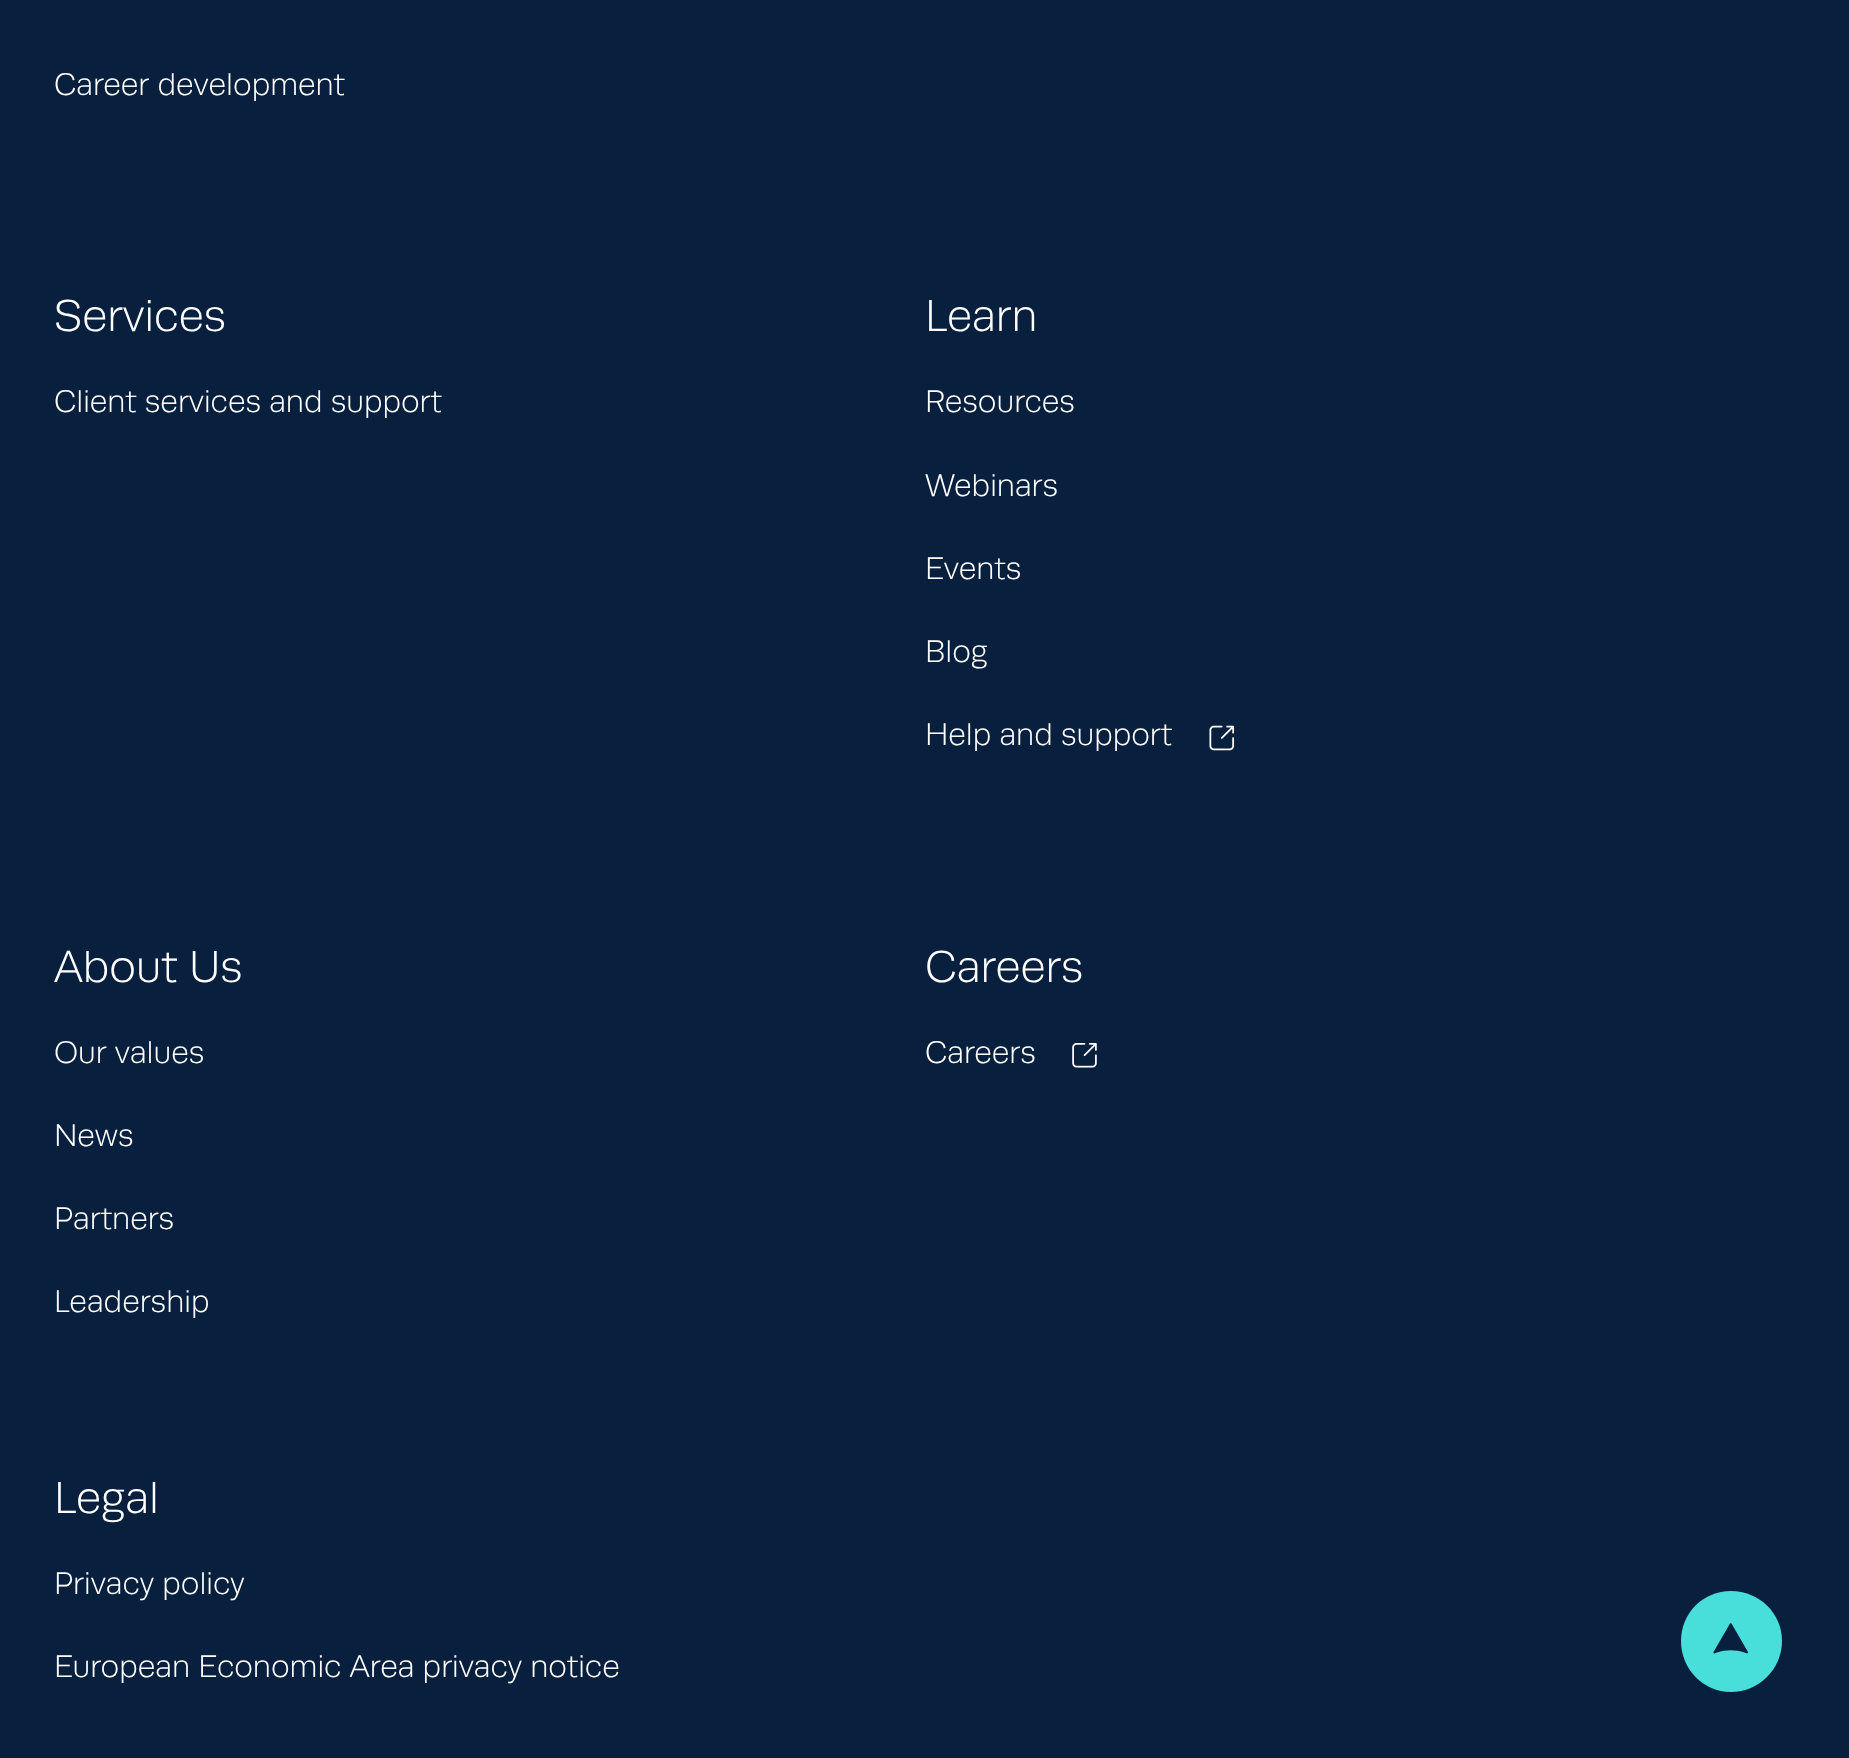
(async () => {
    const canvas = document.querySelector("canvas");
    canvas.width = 1849;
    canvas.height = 1758;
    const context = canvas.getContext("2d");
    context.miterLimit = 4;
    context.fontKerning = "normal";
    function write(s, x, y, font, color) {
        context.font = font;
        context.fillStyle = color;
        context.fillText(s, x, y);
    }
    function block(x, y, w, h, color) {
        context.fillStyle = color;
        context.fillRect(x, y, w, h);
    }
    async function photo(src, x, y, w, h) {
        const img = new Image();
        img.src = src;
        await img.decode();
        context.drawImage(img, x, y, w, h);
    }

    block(0, 0, 1849, 1758, "rgb(8, 32, 62)");
    write("Career development", 54, 95, "300 31.5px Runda", "rgb(255, 255, 255)");
    write("Services", 54, 331, "300 45px Runda", "rgb(255, 255, 255)");
    write("Client services and support", 54, 412, "300 31.5px Runda", "rgb(255, 255, 255)");
    write("Learn", 925, 331, "300 45px Runda", "rgb(255, 255, 255)");
    write("Resources", 925, 412, "300 31.5px Runda", "rgb(255, 255, 255)");
    write("Webinars", 925, 496, "300 31.5px Runda", "rgb(255, 255, 255)");
    write("Events", 925, 579, "300 31.5px Runda", "rgb(255, 255, 255)");
    write("Blog", 925, 662, "300 31.5px Runda", "rgb(255, 255, 255)");
    write("Help and support", 925, 745, "300 31.5px Runda", "rgb(255, 255, 255)");
    await photo("media/1.png", 1209, 725, 26, 26);
    write("About Us", 54, 982, "300 45px Runda", "rgb(255, 255, 255)");
    write("Our values", 54, 1063, "300 31.5px Runda", "rgb(255, 255, 255)");
    write("News", 54, 1146, "300 31.5px Runda", "rgb(255, 255, 255)");
    write("Partners", 54, 1229, "300 31.5px Runda", "rgb(255, 255, 255)");
    write("Leadership", 54, 1312, "300 31.5px Runda", "rgb(255, 255, 255)");
    write("Careers", 925, 982, "300 45px Runda", "rgb(255, 255, 255)");
    write("Careers", 925, 1063, "300 31.5px Runda", "rgb(255, 255, 255)");
    await photo("media/2.png", 1072, 1043, 25, 25);
    write("Legal", 54, 1513, "300 45px Runda", "rgb(255, 255, 255)");
    write("Privacy policy", 54, 1594, "300 31.5px Runda", "rgb(255, 255, 255)");
    write("European Economic Area privacy notice", 54, 1677, "300 31.5px Runda", "rgb(255, 255, 255)");
    context.fillStyle = "rgb(72, 222, 218)";
    context.beginPath();
    context.moveTo(1681, 1641);
    context.bezierCurveTo(1681, 1669, 1703, 1692, 1731, 1692);
    context.bezierCurveTo(1759, 1692, 1782, 1669, 1782, 1641);
    context.bezierCurveTo(1782, 1613, 1759, 1591, 1731, 1591);
    context.bezierCurveTo(1703, 1591, 1681, 1613, 1681, 1641);
    context.closePath();
    context.fill();
    context.fillStyle = "rgb(8, 32, 62)";
    context.beginPath();
    context.moveTo(1730, 1623.5);
    context.bezierCurveTo(1730.5, 1623, 1731, 1623, 1731.5, 1623.5);
    context.lineTo(1748, 1652);
    context.bezierCurveTo(1748, 1652.5, 1747.5, 1653.5, 1747, 1653.5);
    context.lineTo(1744.5, 1652.5);
    context.bezierCurveTo(1735.5, 1649.5, 1726, 1649.5, 1717, 1652.5);
    context.lineTo(1714.5, 1653.5);
    context.bezierCurveTo(1714, 1653.5, 1713, 1652.5, 1713.5, 1652);
    context.closePath();
    context.fill();
})();
